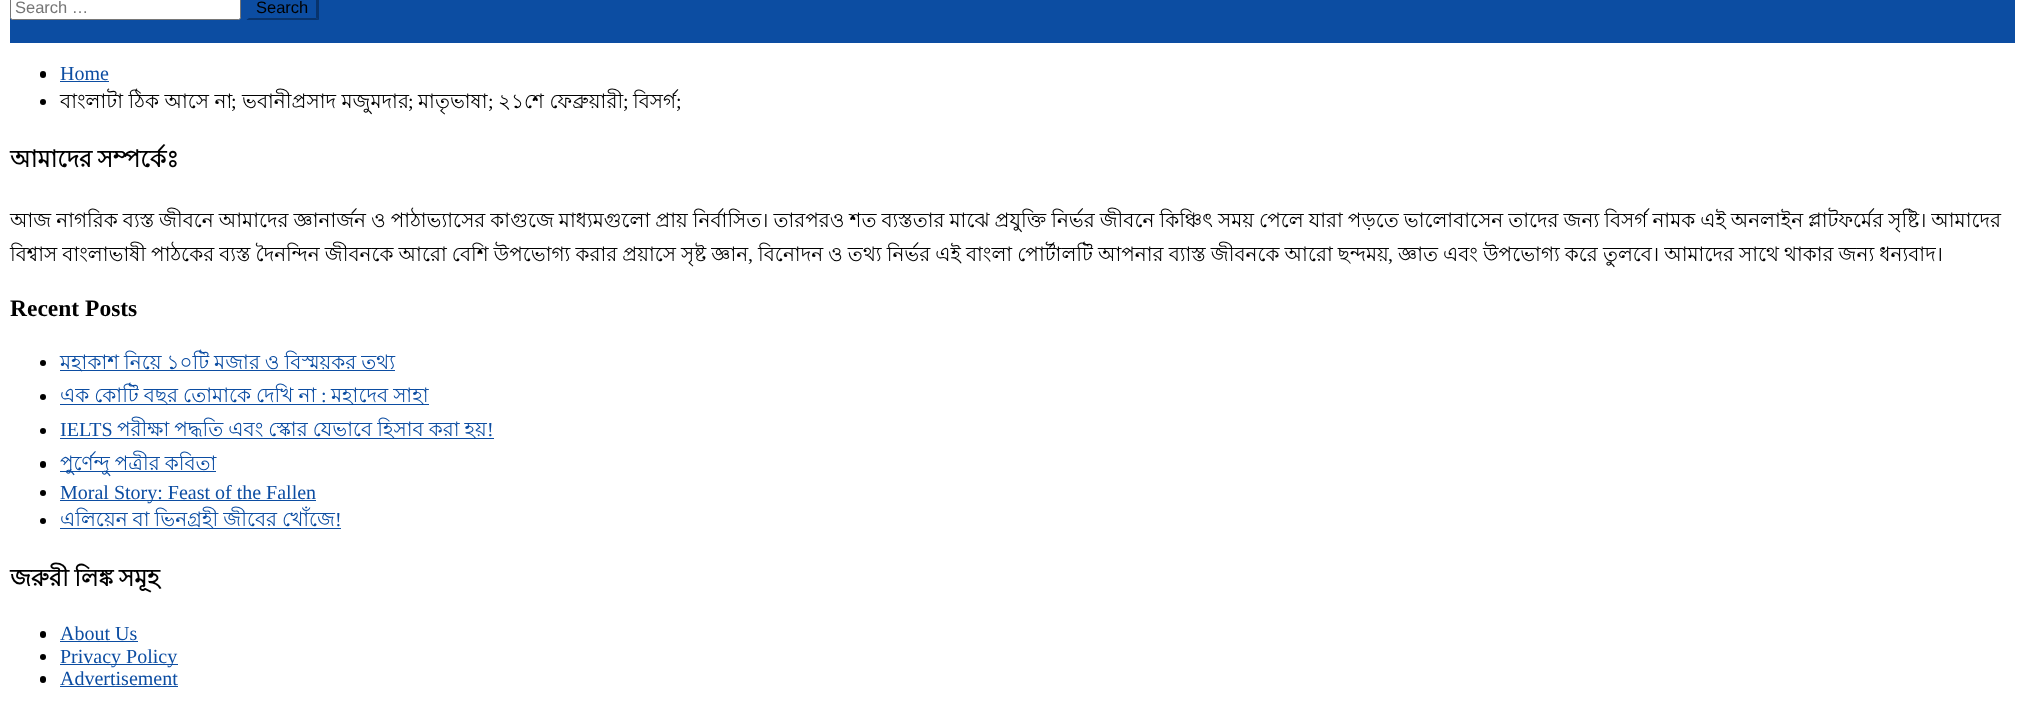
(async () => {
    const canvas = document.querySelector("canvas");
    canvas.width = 2024;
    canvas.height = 704;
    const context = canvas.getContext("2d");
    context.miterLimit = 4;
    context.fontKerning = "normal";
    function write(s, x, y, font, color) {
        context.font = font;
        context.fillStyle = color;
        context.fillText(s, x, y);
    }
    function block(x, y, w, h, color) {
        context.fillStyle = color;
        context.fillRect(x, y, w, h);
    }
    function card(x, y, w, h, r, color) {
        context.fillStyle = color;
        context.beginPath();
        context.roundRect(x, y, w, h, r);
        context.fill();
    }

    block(0, 0, 2024, 704, "rgb(255, 255, 255)");
    block(10, 0, 2005, 43, "rgb(12, 77, 162)");
    context.fillStyle = "rgb(255, 255, 255)";
    context.beginPath();
    context.roundRect(10.5, -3.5, 230, 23, 2);
    context.fill();
    context.strokeStyle = "rgb(118, 118, 118)";
    context.stroke();
    write("Search …", 15, 13, "16.5px Liberation Sans", "rgb(117, 117, 117)");
    context.fillStyle = "rgb(8, 51, 108)";
    context.beginPath();
    context.moveTo(319, -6);
    context.lineTo(319, 20);
    context.lineTo(316, 17.5);
    context.lineTo(316, -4);
    context.closePath();
    context.fill();
    context.beginPath();
    context.moveTo(319, 20);
    context.lineTo(246, 20);
    context.lineTo(249, 18);
    context.lineTo(316, 18);
    context.closePath();
    context.fill();
    context.fillStyle = "rgb(12, 77, 162)";
    context.beginPath();
    context.moveTo(246, 20);
    context.lineTo(246, -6);
    context.lineTo(249, -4);
    context.lineTo(249, 17.5);
    context.closePath();
    context.fill();
    write("Search", 256, 13, "16.5px Liberation Sans", "rgb(0, 0, 0)");
    card(40, 71, 6, 7, 3, "rgb(0, 0, 0)");
    write("Home", 60, 80, "20px Liberation Serif", "rgb(12, 77, 162)");
    block(60, 81, 49, 1, "rgb(12, 77, 162)");
    context.fillStyle = "rgb(0, 0, 0)";
    context.beginPath();
    context.arc(43, 102, 3, 0, Math.PI * 2);
    context.fill();
    write("বাংলাটা ঠিক আসে না", 60, 108, "20px Lohit Bengali", "rgb(0, 0, 0)");
    write(";", 231, 108, "20px Liberation Serif", "rgb(0, 0, 0)");
    write("ভবানীপ্রসাদ মজুমদার", 242, 108, "20px Lohit Bengali", "rgb(0, 0, 0)");
    write(";", 408, 108, "20px Liberation Serif", "rgb(0, 0, 0)");
    write("মাতৃভাষা", 418, 108, "20px Lohit Bengali", "rgb(0, 0, 0)");
    write(";", 488, 108, "20px Liberation Serif", "rgb(0, 0, 0)");
    write("২১শে ফেব্রুয়ারী", 498, 108, "20px Lohit Bengali", "rgb(0, 0, 0)");
    write(";", 623, 108, "20px Liberation Serif", "rgb(0, 0, 0)");
    write("বিসর্গ", 633, 108, "20px Lohit Bengali", "rgb(0, 0, 0)");
    write(";", 676, 108, "20px Liberation Serif", "rgb(0, 0, 0)");
    context.wordSpacing = "-1px";
    write("আমাদের সম্পর্কেঃ", 10, 167, "bold 23.5px Lohit Bengali", "rgb(0, 0, 0)");
    context.wordSpacing = "-0.55px";
    write("আজ নাগরিক ব্যস্ত জীবনে আমাদের জ্ঞানার্জন ও পাঠাভ্যাসের কাগুজে মাধ্যমগুলো প্রায় নির্বাসিত। তারপরও শত ব্যস্ততার মাঝে প্রযুক্তি নির্ভর জীবনে কিঞ্চিৎ সময় পেলে যারা পড়তে ভালোবাসেন তাদের জন্য বিসর্গ নামক এই অনলাইন প্লাটফর্মের সৃষ্টি। আমাদের", 10, 227, "20px Lohit Bengali", "rgb(0, 0, 0)");
    context.wordSpacing = "-0.5px";
    write("বিশ্বাস বাংলাভাষী পাঠকের ব্যস্ত দৈনন্দিন জীবনকে আরো বেশি উপভোগ্য করার প্রয়াসে সৃষ্ট জ্ঞান", 10, 261, "20px Lohit Bengali", "rgb(0, 0, 0)");
    context.wordSpacing = "0px";
    write(",", 748, 261, "20px Liberation Serif", "rgb(0, 0, 0)");
    context.wordSpacing = "-0.5px";
    write("বিনোদন ও তথ্য নির্ভর এই বাংলা পোর্টালটি আপনার ব্যাস্ত জীবনকে আরো ছন্দময়", 758, 261, "20px Lohit Bengali", "rgb(0, 0, 0)");
    context.wordSpacing = "0px";
    write(",", 1388, 261, "20px Liberation Serif", "rgb(0, 0, 0)");
    context.wordSpacing = "-0.5px";
    write("জ্ঞাত এবং উপভোগ্য করে তুলবে। আমাদের সাথে থাকার জন্য ধন্যবাদ।", 1398, 261, "20px Lohit Bengali", "rgb(0, 0, 0)");
    context.wordSpacing = "0px";
    write("Recent Posts", 10, 316, "bold 23.5px Liberation Serif", "rgb(0, 0, 0)");
    context.beginPath();
    context.arc(43, 363, 3, 0, Math.PI * 2);
    context.fill();
    block(60, 370, 335, 1, "rgb(12, 77, 162)");
    context.wordSpacing = "-0.55px";
    write("মহাকাশ নিয়ে ১০টি মজার ও বিস্ময়কর তথ্য", 60, 369, "20px Lohit Bengali", "rgb(12, 77, 162)");
    context.fillStyle = "rgb(0, 0, 0)";
    context.beginPath();
    context.arc(43, 397, 3, 0, Math.PI * 2);
    context.fill();
    block(60, 404, 369, 1, "rgb(12, 77, 162)");
    context.wordSpacing = "-0.5px";
    write("এক কোটি বছর তোমাকে দেখি না", 60, 402, "20px Lohit Bengali", "rgb(12, 77, 162)");
    context.wordSpacing = "0px";
    write(":", 321, 402, "20px Liberation Serif", "rgb(12, 77, 162)");
    context.wordSpacing = "-0.5px";
    write("মহাদেব সাহা", 331, 402, "20px Lohit Bengali", "rgb(12, 77, 162)");
    context.fillStyle = "rgb(0, 0, 0)";
    context.beginPath();
    context.arc(43, 431, 3, 0, Math.PI * 2);
    context.fill();
    context.wordSpacing = "0px";
    write("IELTS", 60, 436, "20px Liberation Serif", "rgb(12, 77, 162)");
    block(60, 438, 434, 1, "rgb(12, 77, 162)");
    context.wordSpacing = "-0.5px";
    write("পরীক্ষা পদ্ধতি এবং স্কোর যেভাবে হিসাব করা হয়", 117, 436, "20px Lohit Bengali", "rgb(12, 77, 162)");
    context.wordSpacing = "0px";
    write("!", 487, 436, "20px Liberation Serif", "rgb(12, 77, 162)");
    card(40, 461, 6, 7, 3, "rgb(0, 0, 0)");
    block(60, 471, 156, 1, "rgb(12, 77, 162)");
    context.wordSpacing = "-0.55px";
    write("পুর্ণেন্দু পত্রীর কবিতা", 60, 470, "20px Lohit Bengali", "rgb(12, 77, 162)");
    context.fillStyle = "rgb(0, 0, 0)";
    context.beginPath();
    context.arc(43, 493, 3, 0, Math.PI * 2);
    context.fill();
    block(60, 500, 256, 1, "rgb(12, 77, 162)");
    context.wordSpacing = "0px";
    write("Moral Story: Feast of the Fallen", 60, 499, "20px Liberation Serif", "rgb(12, 77, 162)");
    context.fillStyle = "rgb(0, 0, 0)";
    context.beginPath();
    context.arc(43, 521, 3, 0, Math.PI * 2);
    context.fill();
    block(60, 528, 281, 1, "rgb(12, 77, 162)");
    context.wordSpacing = "-0.55px";
    write("এলিয়েন বা ভিনগ্রহী জীবের খোঁজে", 60, 526, "20px Lohit Bengali", "rgb(12, 77, 162)");
    context.wordSpacing = "0px";
    write("!", 335, 526, "20px Liberation Serif", "rgb(12, 77, 162)");
    context.wordSpacing = "-1px";
    write("জরুরী লিঙ্ক সমূহ", 10, 586, "bold 23.5px Lohit Bengali", "rgb(0, 0, 0)");
    card(40, 631, 6, 7, 3, "rgb(0, 0, 0)");
    context.wordSpacing = "0px";
    write("About Us", 60, 640, "20px Liberation Serif", "rgb(12, 77, 162)");
    block(60, 641, 78, 1, "rgb(12, 77, 162)");
    context.fillStyle = "rgb(0, 0, 0)";
    context.beginPath();
    context.arc(43, 657, 3, 0, Math.PI * 2);
    context.fill();
    block(60, 664, 118, 1, "rgb(12, 77, 162)");
    write("Privacy Policy", 60, 663, "20px Liberation Serif", "rgb(12, 77, 162)");
    card(40, 676, 6, 7, 3, "rgb(0, 0, 0)");
    write("Advertisement", 60, 685, "20px Liberation Serif", "rgb(12, 77, 162)");
    block(60, 686, 118, 1, "rgb(12, 77, 162)");
})();
